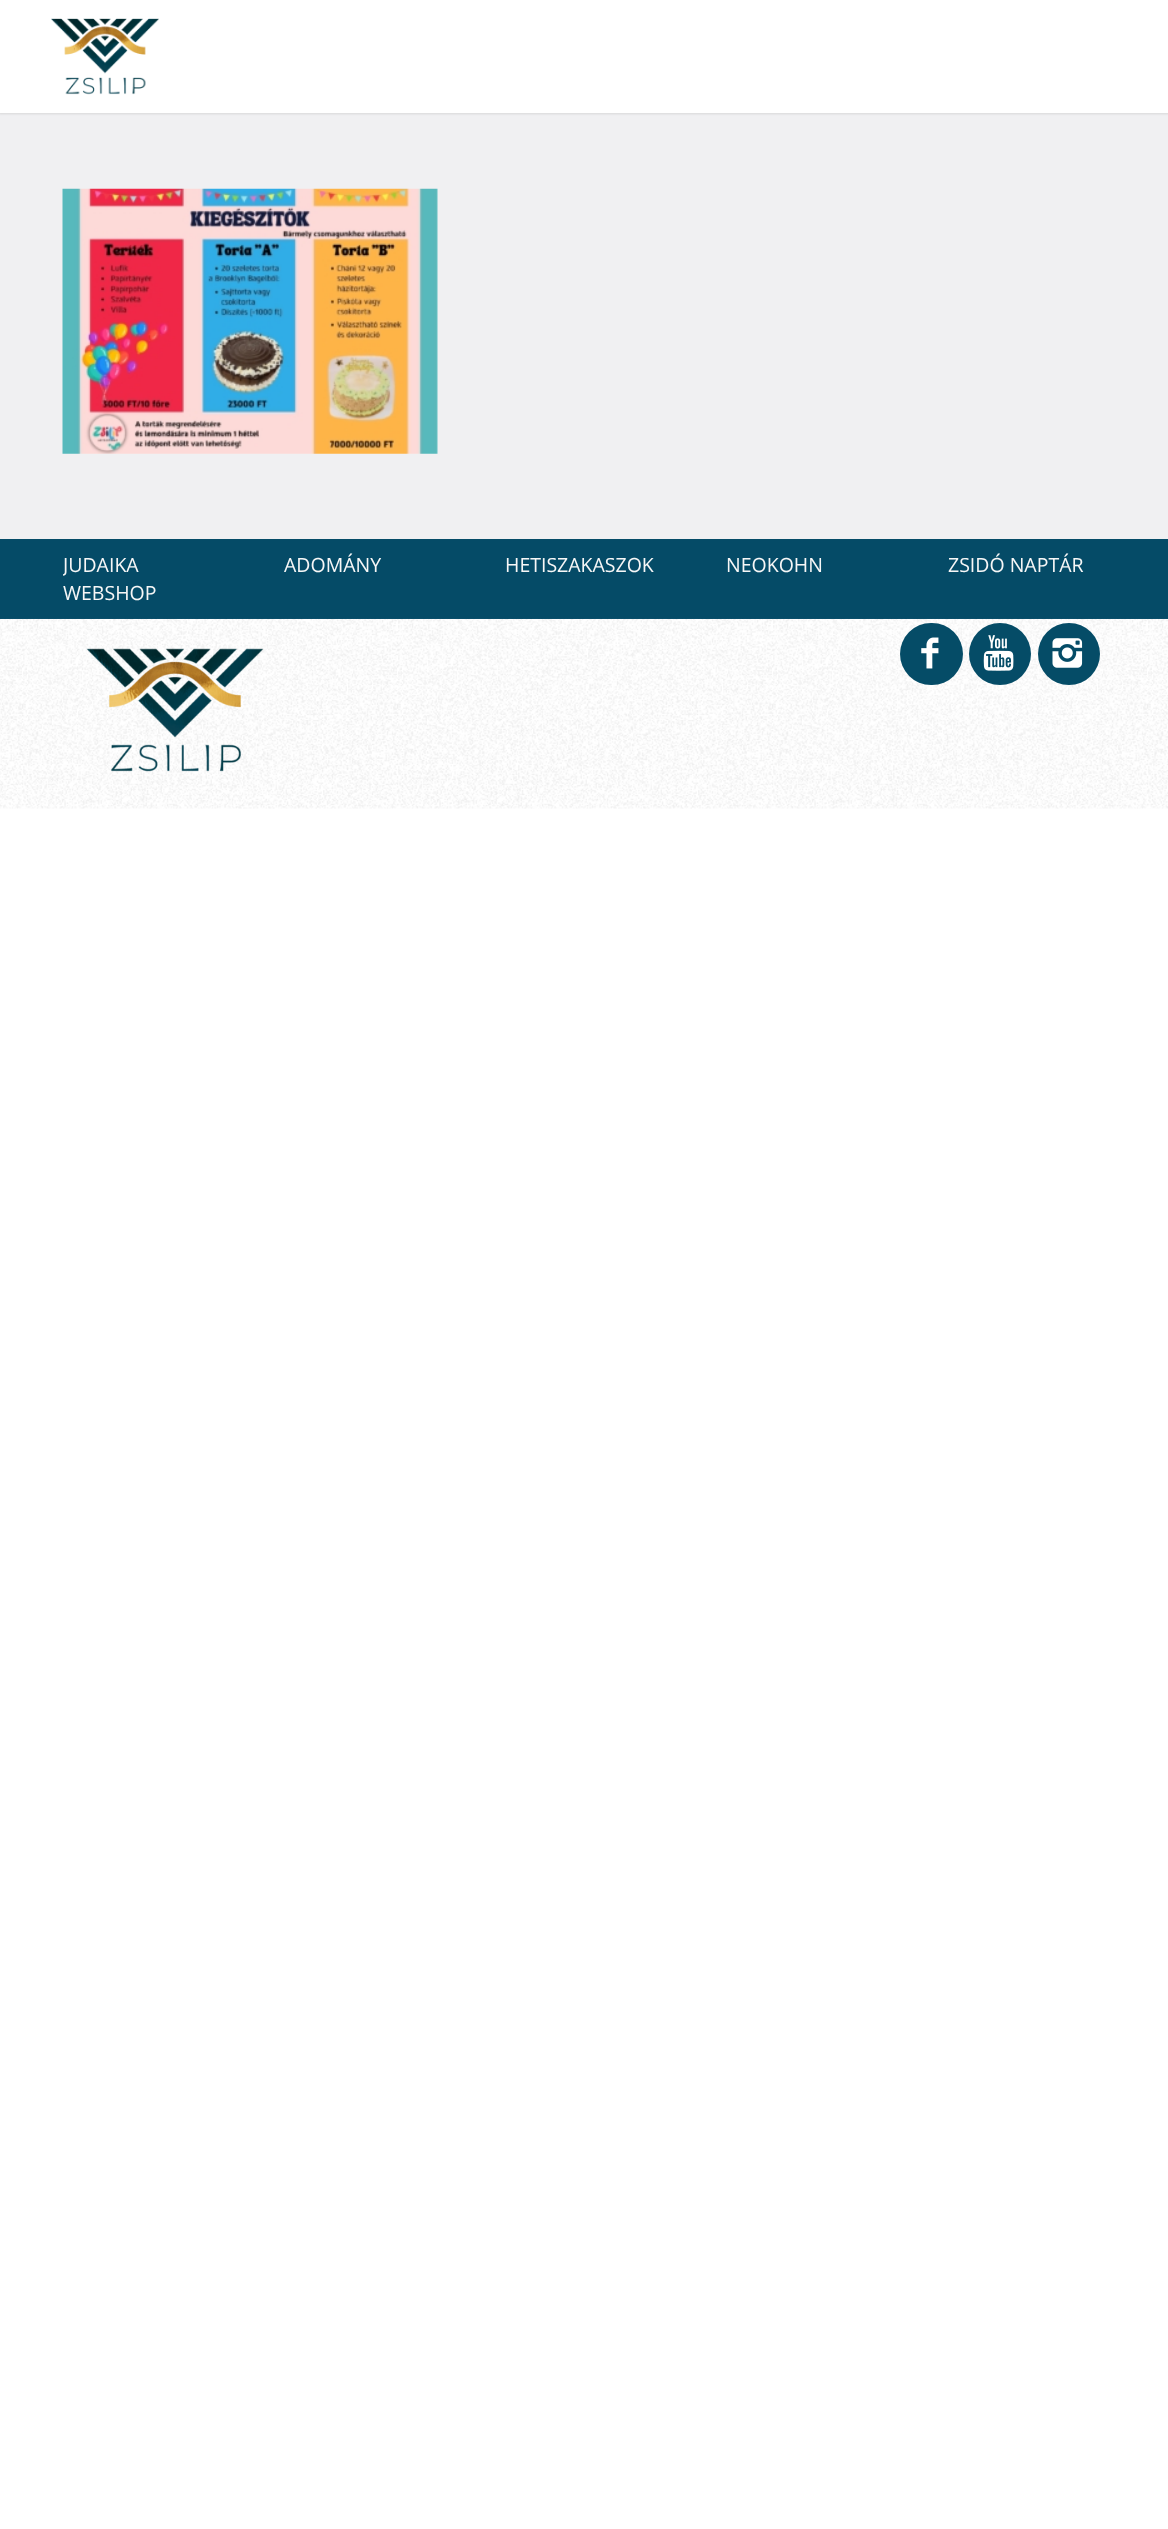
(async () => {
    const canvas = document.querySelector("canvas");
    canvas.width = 1168;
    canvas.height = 2529;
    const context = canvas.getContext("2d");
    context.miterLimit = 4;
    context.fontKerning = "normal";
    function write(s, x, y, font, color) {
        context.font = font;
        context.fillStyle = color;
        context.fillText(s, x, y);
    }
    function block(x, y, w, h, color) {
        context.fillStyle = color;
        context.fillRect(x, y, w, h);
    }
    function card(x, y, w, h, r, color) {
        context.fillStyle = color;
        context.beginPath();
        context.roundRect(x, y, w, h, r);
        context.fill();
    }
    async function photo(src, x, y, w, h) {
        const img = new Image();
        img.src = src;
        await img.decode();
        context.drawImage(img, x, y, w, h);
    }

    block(0, 0, 1168, 2529, "rgb(255, 255, 255)");
    block(0, 113, 1168, 426, "rgb(240, 240, 242)");
    context.fillStyle = "rgba(0, 0, 0, 0.1)";
    context.filter = "blur(1px)";
    context.beginPath();
    context.rect(-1, -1, 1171, 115);
    context.fill();
    context.filter = "none";
    block(0, 0, 1168, 113, "rgb(255, 255, 255)");
    await photo("media/1.png", 51, 18, 108, 77);
    await photo("media/2.png", 62, 188, 376, 266);
    block(0, 539, 1168, 80, "rgb(5, 75, 103)");
    context.save();
    context.beginPath();
    context.rect(63, 553, 158, 55);
    context.clip();
    write("JUDAIKA", 63, 572, "19.5px Open Sans", "rgb(247, 247, 247)");
    context.restore();
    write("WEBSHOP", 63, 600, "19.5px Open Sans", "rgb(247, 247, 247)");
    write("ADOMÁNY", 284, 572, "19.5px Open Sans", "rgb(247, 247, 247)");
    write("HETISZAKASZOK", 505, 572, "19.5px Open Sans", "rgb(247, 247, 247)");
    write("NEOKOHN", 726, 572, "19.5px Open Sans", "rgb(247, 247, 247)");
    write("ZSIDÓ NAPTÁR", 948, 572, "19.5px Open Sans", "rgb(247, 247, 247)");
    await photo("media/3.png", 0, 618, 1168, 191);
    await photo("media/4.png", 86, 648, 178, 124);
    card(900, 623, 63, 62, 31, "rgb(5, 76, 103)");
    await photo("media/5.png", 921, 637, 18, 32);
    context.beginPath();
    context.arc(1000, 654, 31, 0, Math.PI * 2);
    context.fill();
    await photo("media/6.png", 983, 635, 31, 36);
    context.beginPath();
    context.arc(1069, 654, 31, 0, Math.PI * 2);
    context.fill();
    await photo("media/7.png", 1052, 638, 31, 30);
})();
